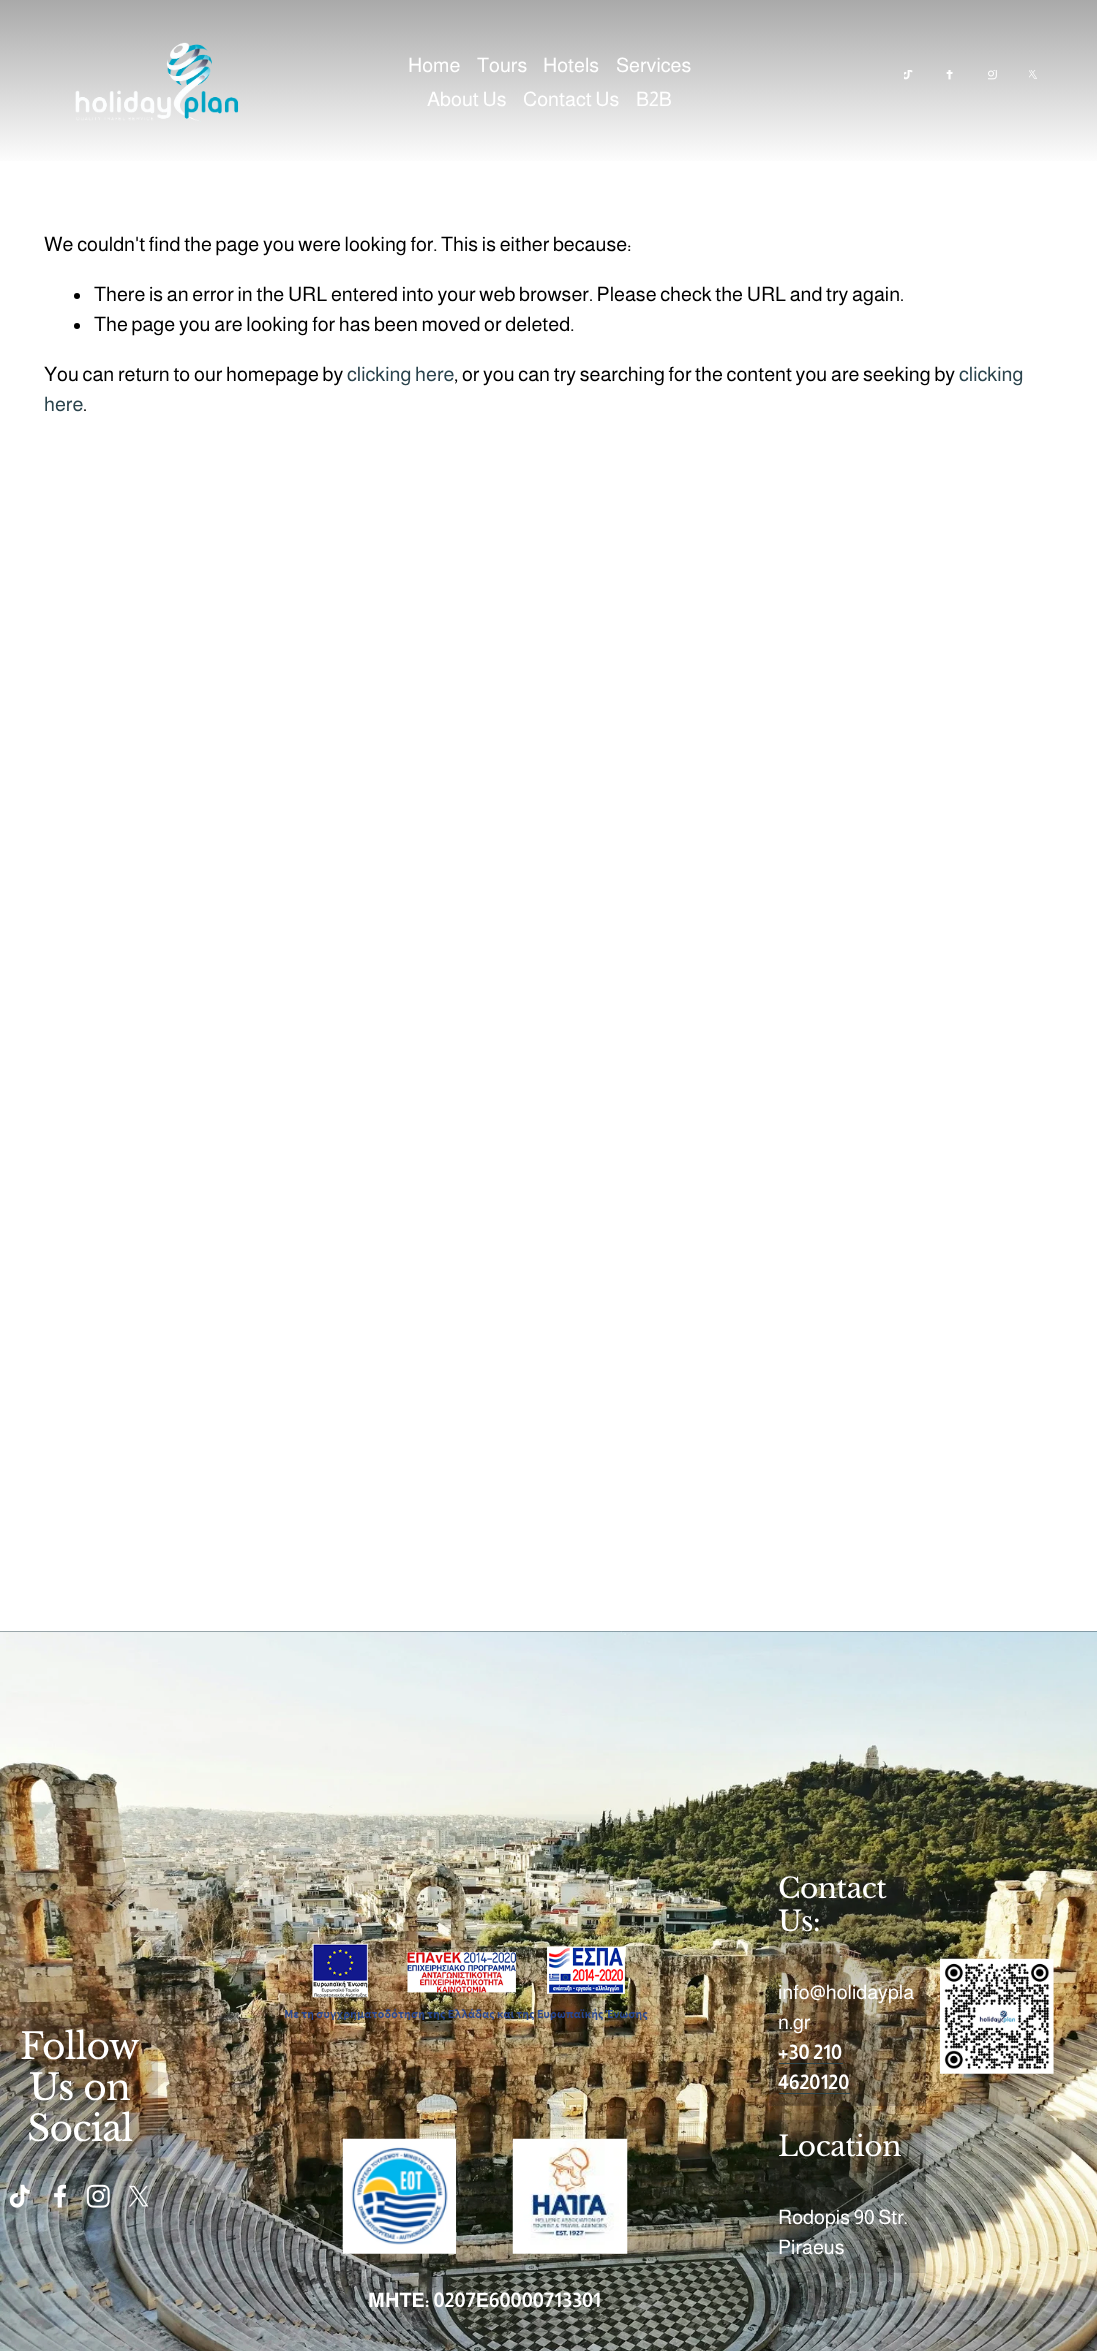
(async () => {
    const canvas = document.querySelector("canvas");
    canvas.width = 1097;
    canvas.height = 2351;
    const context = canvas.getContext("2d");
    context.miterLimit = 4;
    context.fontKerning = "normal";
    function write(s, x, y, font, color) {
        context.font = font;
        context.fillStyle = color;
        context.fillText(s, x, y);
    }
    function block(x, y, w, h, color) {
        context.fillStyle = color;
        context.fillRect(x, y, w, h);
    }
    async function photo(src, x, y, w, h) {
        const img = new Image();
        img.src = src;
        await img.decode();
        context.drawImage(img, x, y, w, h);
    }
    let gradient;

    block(0, 0, 1097, 2351, "rgb(255, 255, 255)");
    gradient = context.createLinearGradient(549, 0, 549, 166);
    gradient.addColorStop(0, "rgb(169, 169, 169)");
    gradient.addColorStop(1, "rgb(255, 255, 255)");
    context.fillStyle = gradient;
    context.fillRect(0, 0, 1097, 161);
    await photo("media/1.png", 75, 42, 164, 80);
    write("Home", 408, 72, "20px Almarai", "rgb(255, 255, 255)");
    write("Tours", 477, 72, "20px Almarai", "rgb(255, 255, 255)");
    write("Hotels", 543, 72, "20px Almarai", "rgb(255, 255, 255)");
    write("Services", 616, 72, "20px Almarai", "rgb(255, 255, 255)");
    write("About Us", 427, 106, "20px Almarai", "rgb(255, 255, 255)");
    write("Contact Us", 523, 106, "20px Almarai", "rgb(255, 255, 255)");
    write("B2B", 636, 106, "20px Almarai", "rgb(255, 255, 255)");
    await photo("media/2.png", 904, 70, 9, 10);
    await photo("media/3.png", 946, 70, 7, 10);
    await photo("media/4.png", 988, 70, 9, 10);
    await photo("media/5.png", 1029, 70, 8, 9);
    write("We couldn't find the page you were looking for. This is either because:", 44, 251, "20px Almarai", "rgb(0, 0, 0)");
    context.beginPath();
    context.arc(77, 296, 3, 0, Math.PI * 2);
    context.fill();
    write("There is an error in the URL entered into your web browser. Please check the URL and try again.", 94, 301, "20px Almarai", "rgb(0, 0, 0)");
    context.beginPath();
    context.arc(77, 326, 3, 0, Math.PI * 2);
    context.fill();
    write("The page you are looking for has been moved or deleted.", 94, 331, "20px Almarai", "rgb(0, 0, 0)");
    write("You can return to our homepage by", 44, 381, "20px Almarai", "rgb(0, 0, 0)");
    write("clicking here", 347, 381, "20px Almarai", "rgb(43, 68, 77)");
    write(", or you can try searching for the content you are seeking by", 454, 381, "20px Almarai", "rgb(0, 0, 0)");
    write("clicking", 959, 381, "20px Almarai", "rgb(43, 68, 77)");
    write("here", 44, 411, "20px Almarai", "rgb(43, 68, 77)");
    write(".", 83, 411, "20px Almarai", "rgb(0, 0, 0)");
    block(0, 1631, 1097, 1, "rgb(43, 68, 77)");
    await photo("media/6.png", 0, 1631, 1097, 720);
    await photo("media/7.png", 285, 1943, 363, 77);
    block(769, 1863, 157, 243, "rgba(42, 40, 41, 0.25)");
    context.letterSpacing = "-0.5px";
    write("Contact", 778, 1898, "28px Libre Baskerville", "rgb(255, 255, 255)");
    write("Us:", 778, 1931, "28px Libre Baskerville", "rgb(255, 255, 255)");
    context.letterSpacing = "0px";
    write("info@holidaypla", 778, 1999, "20px Almarai", "rgb(255, 255, 255)");
    write("n.gr", 778, 2029, "20px Almarai", "rgb(255, 255, 255)");
    write("+30 210", 778, 2059, "bold 20px Almarai", "rgb(255, 255, 255)");
    block(779, 2063, 64, 1, "rgb(43, 68, 77)");
    write("4620120", 778, 2089, "bold 20px Almarai", "rgb(255, 255, 255)");
    block(779, 2093, 71, 1, "rgb(43, 68, 77)");
    await photo("media/8.png", 940, 1958, 114, 116);
    block(0, 2018, 158, 152, "rgba(42, 40, 41, 0.16)");
    context.letterSpacing = "-0.75px";
    write("Follow", 20, 2059, "36px Libre Baskerville", "rgb(255, 255, 255)");
    write("Us on", 29, 2100, "36px Libre Baskerville", "rgb(255, 255, 255)");
    write("Social", 27, 2141, "36px Libre Baskerville", "rgb(255, 255, 255)");
    await photo("media/9.png", 9, 2184, 21, 24);
    await photo("media/10.png", 54, 2184, 12, 24);
    await photo("media/11.png", 86, 2184, 24, 24);
    await photo("media/12.png", 129, 2185, 20, 22);
    await photo("media/13.png", 342, 2138, 115, 116);
    await photo("media/14.png", 512, 2138, 116, 116);
    block(769, 2120, 157, 153, "rgba(42, 40, 41, 0.19)");
    context.letterSpacing = "-0.5px";
    write("Location", 778, 2156, "28px Libre Baskerville", "rgb(255, 255, 255)");
    context.letterSpacing = "0px";
    write("Rodopis 90 Str.", 778, 2224, "20px Almarai", "rgb(255, 255, 255)");
    write("Piraeus", 778, 2254, "20px Almarai", "rgb(255, 255, 255)");
    write("MHTE: 0207E60000713301", 368, 2307, "bold 20px Almarai", "rgb(255, 255, 255)");
})();
